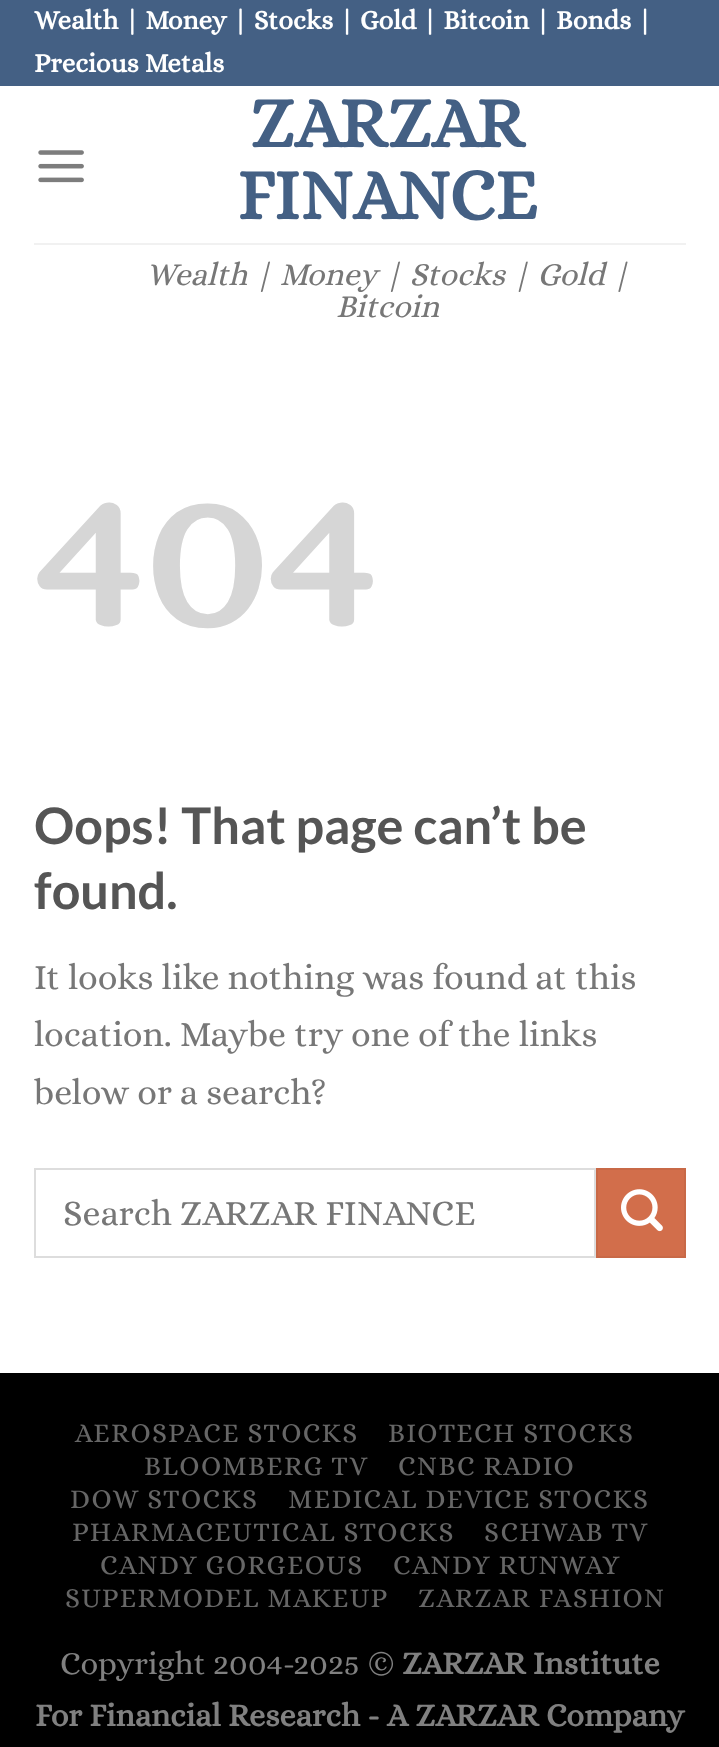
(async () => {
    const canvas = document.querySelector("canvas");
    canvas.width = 719;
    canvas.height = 1747;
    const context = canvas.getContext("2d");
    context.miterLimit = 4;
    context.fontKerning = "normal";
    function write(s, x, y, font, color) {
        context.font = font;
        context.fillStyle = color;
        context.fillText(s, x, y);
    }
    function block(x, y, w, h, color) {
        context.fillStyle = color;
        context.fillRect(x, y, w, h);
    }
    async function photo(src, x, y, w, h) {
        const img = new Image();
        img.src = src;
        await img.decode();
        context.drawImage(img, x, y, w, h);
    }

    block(0, 0, 719, 1747, "rgb(255, 255, 255)");
    block(0, 0, 719, 86, "rgb(68, 96, 132)");
    write("Wealth | Money | Stocks | Gold | Bitcoin | Bonds |", 34, 29, "bold 27px Alice", "rgb(255, 255, 255)");
    write("Precious Metals", 34, 72, "bold 27px Alice", "rgb(255, 255, 255)");
    await photo("media/1.png", 38, 150, 46, 33);
    write("ZARZAR", 250, 147, "bold 72px Alice", "rgb(68, 96, 132)");
    write("FINANCE", 237, 219, "bold 72px Alice", "rgb(68, 96, 132)");
    write("Wealth | Money | Stocks | Gold |", 146, 285, "italic 32.4px Alice", "rgb(119, 119, 119)");
    write("Bitcoin", 336, 317, "italic 32.4px Alice", "rgb(119, 119, 119)");
    block(34, 243, 652, 2, "rgb(241, 241, 241)");
    write("404", 34, 624, "bold 216px Alice", "rgb(214, 214, 214)");
    write("Oops! That page can’t be", 34, 844, "bold 50.4px Lato", "rgb(85, 85, 85)");
    write("found.", 34, 909, "bold 50.4px Lato", "rgb(85, 85, 85)");
    write("It looks like nothing was found at this", 34, 989, "36px Alice", "rgb(119, 119, 119)");
    write("location. Maybe try one of the links", 34, 1046, "36px Alice", "rgb(119, 119, 119)");
    write("below or a search?", 34, 1104, "36px Alice", "rgb(119, 119, 119)");
    context.strokeStyle = "rgb(221, 221, 221)";
    context.lineWidth = 2;
    context.strokeRect(35, 1169, 560, 88);
    write("Search ZARZAR FINANCE", 63, 1225, "36px Alice", "rgb(119, 119, 119)");
    context.fillStyle = "rgb(210, 110, 75)";
    context.beginPath();
    context.rect(597, 1169, 88, 88);
    context.fill();
    context.strokeStyle = "rgb(200, 105, 71)";
    context.stroke();
    await photo("media/2.png", 621, 1189, 42, 43);
    block(0, 1373, 719, 374, "rgb(0, 0, 0)");
    context.letterSpacing = "1.4px";
    write("AEROSPACE STOCKS", 75, 1442, "27.5px Alice", "rgb(102, 102, 102)");
    write("BIOTECH STOCKS", 388, 1442, "27.5px Alice", "rgb(102, 102, 102)");
    write("BLOOMBERG TV", 144, 1475, "27.5px Alice", "rgb(102, 102, 102)");
    write("CNBC RADIO", 398, 1475, "27.5px Alice", "rgb(102, 102, 102)");
    write("DOW STOCKS", 70, 1508, "27.5px Alice", "rgb(102, 102, 102)");
    write("MEDICAL DEVICE STOCKS", 288, 1508, "27.5px Alice", "rgb(102, 102, 102)");
    write("PHARMACEUTICAL STOCKS", 72, 1541, "27.5px Alice", "rgb(102, 102, 102)");
    write("SCHWAB TV", 484, 1541, "27.5px Alice", "rgb(102, 102, 102)");
    write("CANDY GORGEOUS", 100, 1574, "27.5px Alice", "rgb(102, 102, 102)");
    write("CANDY RUNWAY", 393, 1574, "27.5px Alice", "rgb(102, 102, 102)");
    write("SUPERMODEL MAKEUP", 65, 1607, "27.5px Alice", "rgb(102, 102, 102)");
    write("ZARZAR FASHION", 418, 1607, "27.5px Alice", "rgb(102, 102, 102)");
    context.letterSpacing = "0px";
    write("Copyright 2004-2025 ©", 60, 1674, "32.4px Alice", "rgb(128, 128, 128)");
    write("ZARZAR Institute", 402, 1674, "bold 32.4px Alice", "rgb(128, 128, 128)");
    write("For Financial Research - A ZARZAR Company", 35, 1726, "bold 32.4px Alice", "rgb(128, 128, 128)");
})();
